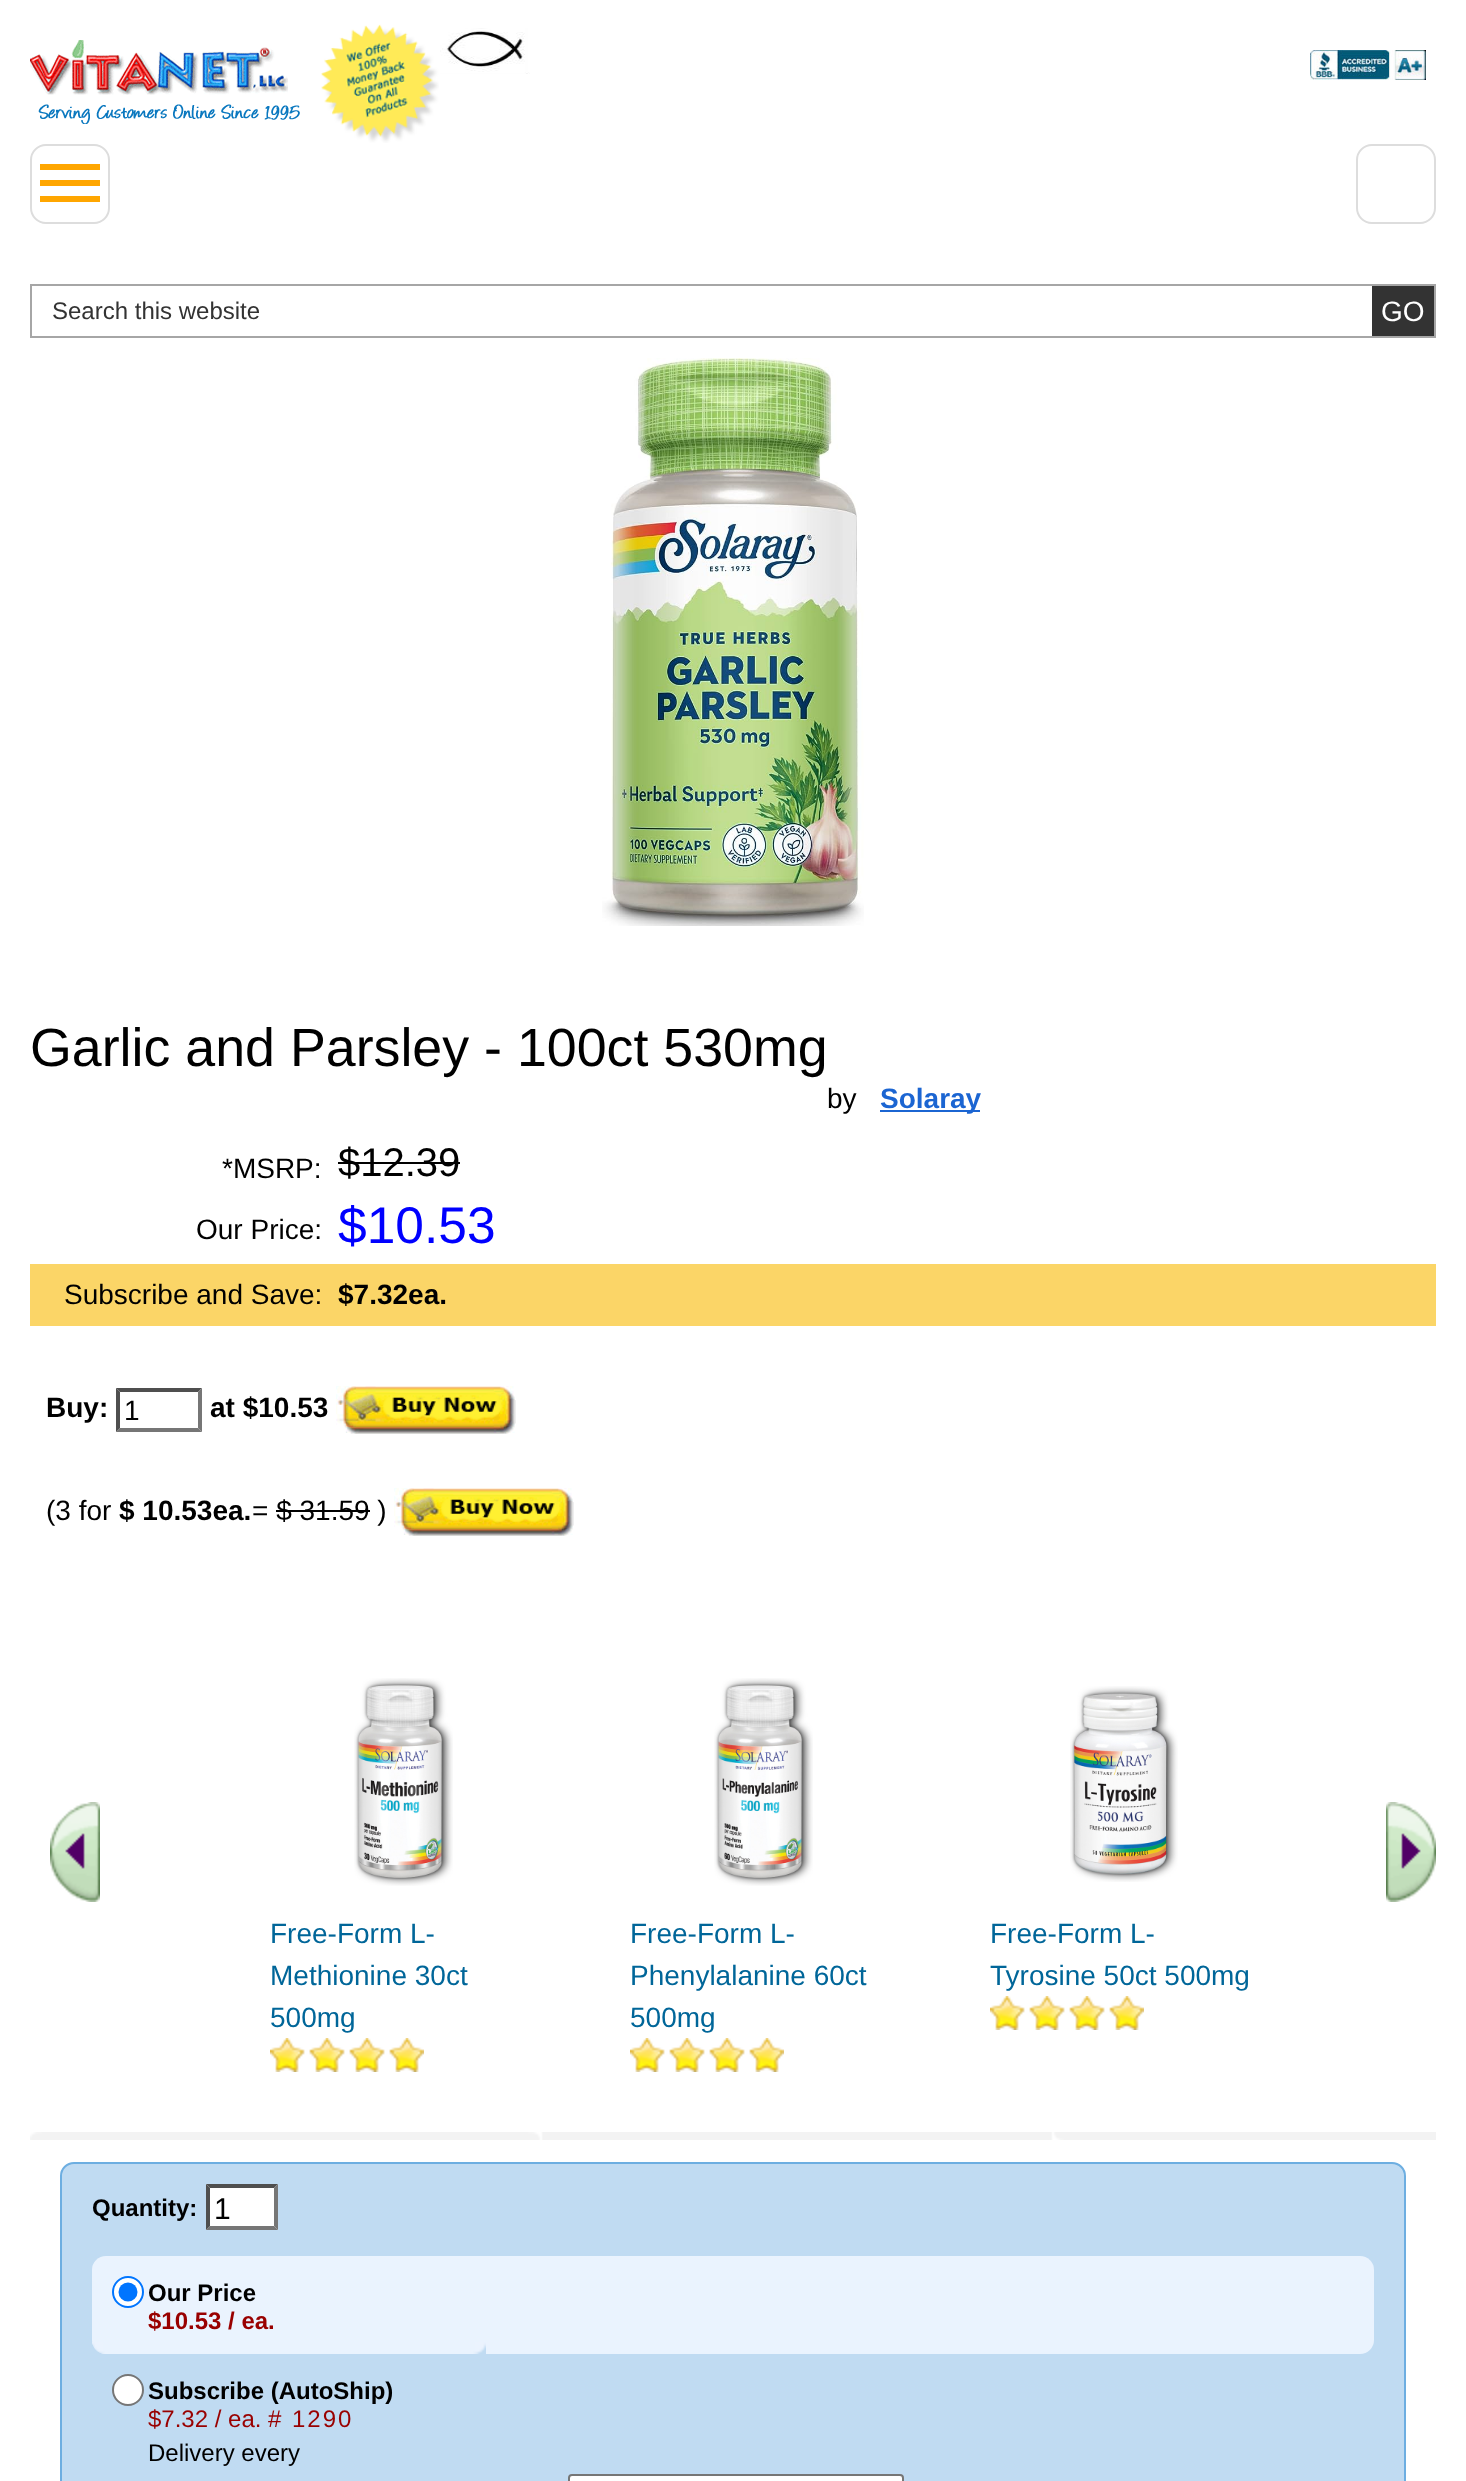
(async () => {
    const canvas = document.querySelector("canvas");
    canvas.width = 1466;
    canvas.height = 2481;
    const context = canvas.getContext("2d");
    context.miterLimit = 4;
    context.fontKerning = "normal";
    function write(s, x, y, font, color) {
        context.font = font;
        context.fillStyle = color;
        context.fillText(s, x, y);
    }
    function block(x, y, w, h, color) {
        context.fillStyle = color;
        context.fillRect(x, y, w, h);
    }
    function card(x, y, w, h, r, color) {
        context.fillStyle = color;
        context.beginPath();
        context.roundRect(x, y, w, h, r);
        context.fill();
    }
    async function photo(src, x, y, w, h) {
        const img = new Image();
        img.src = src;
        await img.decode();
        context.drawImage(img, x, y, w, h);
    }

    block(0, 0, 1466, 2481, "rgb(255, 255, 255)");
    await photo("media/1.png", 30, 40, 270, 84);
    await photo("media/2.png", 321, 24, 118, 119);
    await photo("media/3.png", 440, 28, 90, 46);
    await photo("media/4.png", 1310, 50, 116, 30);
    context.beginPath();
    context.roundRect(1357, 145, 78, 78, 15);
    context.strokeStyle = "rgb(221, 221, 221)";
    context.lineWidth = 2;
    context.stroke();
    context.beginPath();
    context.roundRect(31, 145, 78, 78, 15);
    context.stroke();
    block(40, 164, 60, 6, "rgb(255, 166, 0)");
    block(40, 180, 60, 6, "rgb(255, 166, 0)");
    block(40, 196, 60, 6, "rgb(255, 166, 0)");
    context.strokeStyle = "rgb(166, 166, 166)";
    context.strokeRect(31, 285, 1404, 52);
    write("Search this website", 52, 319, "24px Liberation Sans", "rgb(51, 51, 51)");
    block(1372, 286, 62, 50, "rgb(51, 51, 51)");
    write("GO", 1381, 321, "28px Liberation Sans", "rgb(255, 255, 255)");
    await photo("media/5.png", 602, 358, 262, 568);
    write("Garlic and Parsley - 100ct 530mg", 30, 1066, "53.75px Liberation Sans", "rgb(0, 0, 0)");
    write("by", 827, 1108, "28px Liberation Sans", "rgb(0, 0, 0)");
    block(880, 1110, 100, 2, "rgb(27, 101, 210)");
    write("Solaray", 880, 1108, "bold 28px Liberation Sans", "rgb(27, 101, 210)");
    write("*MSRP:", 222, 1178, "28px Liberation Sans", "rgb(0, 0, 0)");
    write("$12.39", 338, 1176, "40px Liberation Sans", "rgb(0, 0, 0)");
    block(338, 1162, 122, 2, "rgb(0, 0, 0)");
    write("Our Price:", 196, 1239, "28px Liberation Sans", "rgb(0, 0, 0)");
    write("$10.53", 338, 1243, "51.5px Liberation Sans", "rgb(0, 0, 255)");
    block(30, 1264, 1406, 62, "rgb(251, 213, 103)");
    write("Subscribe and Save:", 64, 1304, "28px Liberation Sans", "rgb(0, 0, 0)");
    write("$7.32ea.", 338, 1304, "bold 28px Liberation Sans", "rgb(0, 0, 0)");
    write("Buy:", 46, 1417, "bold 28px Liberation Sans", "rgb(0, 0, 0)");
    context.fillStyle = "rgb(79, 79, 79)";
    context.beginPath();
    context.moveTo(116, 1388);
    context.lineTo(202, 1388);
    context.lineTo(198, 1392);
    context.lineTo(120, 1392);
    context.closePath();
    context.fill();
    context.fillStyle = "rgb(118, 118, 118)";
    context.beginPath();
    context.moveTo(202, 1388);
    context.lineTo(202, 1432);
    context.lineTo(198, 1428);
    context.lineTo(198, 1392);
    context.closePath();
    context.fill();
    context.beginPath();
    context.moveTo(202, 1432);
    context.lineTo(116, 1432);
    context.lineTo(120, 1428);
    context.lineTo(198, 1428);
    context.closePath();
    context.fill();
    context.fillStyle = "rgb(79, 79, 79)";
    context.beginPath();
    context.moveTo(116, 1432);
    context.lineTo(116, 1388);
    context.lineTo(120, 1392);
    context.lineTo(120, 1428);
    context.closePath();
    context.fill();
    write("1", 124, 1420, "28px Liberation Sans", "rgb(0, 0, 0)");
    write("at $10.53", 210, 1417, "bold 28px Liberation Sans", "rgb(0, 0, 0)");
    await photo("media/6.png", 336, 1386, 180, 48);
    write("(3 for", 46, 1520, "28px Liberation Sans", "rgb(0, 0, 0)");
    write("$ 10.53ea.", 119, 1520, "bold 28px Liberation Sans", "rgb(0, 0, 0)");
    write("= $ 31.59 )", 252, 1520, "28px Liberation Sans", "rgb(0, 0, 0)");
    await photo("media/7.png", 394, 1488, 180, 48);
    block(276, 1510, 94, 2, "rgb(0, 0, 0)");
    await photo("media/8.png", 50, 1802, 50, 100);
    await photo("media/9.png", 1386, 1802, 50, 100);
    await photo("media/10.png", 354, 1678, 99, 208);
    write("Free-Form L-", 270, 1943, "28px Liberation Sans", "rgb(0, 102, 153)");
    write("Methionine 30ct", 270, 1985, "28px Liberation Sans", "rgb(0, 102, 153)");
    write("500mg", 270, 2027, "28px Liberation Sans", "rgb(0, 102, 153)");
    await photo("media/11.png", 270, 2038, 154, 34);
    await photo("media/12.png", 714, 1678, 99, 208);
    write("Free-Form L-", 630, 1943, "28px Liberation Sans", "rgb(0, 102, 153)");
    write("Phenylalanine 60ct", 630, 1985, "28px Liberation Sans", "rgb(0, 102, 153)");
    write("500mg", 630, 2027, "28px Liberation Sans", "rgb(0, 102, 153)");
    await photo("media/11.png", 630, 2038, 154, 34);
    await photo("media/13.png", 1070, 1686, 108, 196);
    write("Free-Form L-", 990, 1943, "28px Liberation Sans", "rgb(0, 102, 153)");
    write("Tyrosine 50ct 500mg", 990, 1985, "28px Liberation Sans", "rgb(0, 102, 153)");
    await photo("media/11.png", 990, 1996, 154, 34);
    await photo("media/14.png", 30, 2132, 1406, 8);
    context.fillStyle = "rgb(192, 219, 242)";
    context.beginPath();
    context.roundRect(61, 2163, 1344, 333, 13);
    context.fill();
    context.strokeStyle = "rgb(109, 174, 225)";
    context.stroke();
    write("Quantity:", 92, 2216, "bold 24px Liberation Sans", "rgb(0, 0, 0)");
    block(206, 2184, 72, 46, "rgb(255, 255, 255)");
    context.fillStyle = "rgb(79, 79, 79)";
    context.beginPath();
    context.moveTo(206, 2184);
    context.lineTo(278, 2184);
    context.lineTo(274, 2188);
    context.lineTo(210, 2188);
    context.closePath();
    context.fill();
    context.fillStyle = "rgb(118, 118, 118)";
    context.beginPath();
    context.moveTo(278, 2184);
    context.lineTo(278, 2230);
    context.lineTo(274, 2226);
    context.lineTo(274, 2188);
    context.closePath();
    context.fill();
    context.beginPath();
    context.moveTo(278, 2230);
    context.lineTo(206, 2230);
    context.lineTo(210, 2226);
    context.lineTo(274, 2226);
    context.closePath();
    context.fill();
    context.fillStyle = "rgb(79, 79, 79)";
    context.beginPath();
    context.moveTo(206, 2230);
    context.lineTo(206, 2184);
    context.lineTo(210, 2188);
    context.lineTo(210, 2226);
    context.closePath();
    context.fill();
    write("1", 214, 2219, "30px Liberation Sans", "rgb(0, 0, 0)");
    card(92, 2256, 1282, 98, 14, "rgb(234, 243, 254)");
    await photo("media/15.png", 92, 2342, 394, 12);
    context.fillStyle = "rgb(255, 255, 255)";
    context.beginPath();
    context.arc(128, 2292, 15, 0, Math.PI * 2);
    context.fill();
    context.strokeStyle = "rgb(0, 117, 255)";
    context.stroke();
    context.fillStyle = "rgb(0, 117, 255)";
    context.beginPath();
    context.arc(128, 2292, 9.5, 0, Math.PI * 2);
    context.fill();
    write("Our Price", 148, 2301, "bold 24px Liberation Sans", "rgb(0, 0, 0)");
    write("$10.53 / ea.", 148, 2329, "bold 24px Liberation Sans", "rgb(153, 0, 0)");
    context.fillStyle = "rgb(255, 255, 255)";
    context.beginPath();
    context.arc(128, 2390, 15, 0, Math.PI * 2);
    context.fill();
    context.strokeStyle = "rgb(118, 118, 118)";
    context.stroke();
    write("Subscribe (AutoShip)", 148, 2399, "bold 24px Liberation Sans", "rgb(0, 0, 0)");
    write("$7.32 / ea.", 148, 2427, "24px Liberation Sans", "rgb(153, 0, 0)");
    context.letterSpacing = "2px";
    write("# 1290", 268, 2427, "24px Liberation Sans", "rgb(153, 0, 0)");
    context.letterSpacing = "0px";
    write("Delivery every", 148, 2461, "24px Liberation Sans", "rgb(0, 0, 0)");
    context.fillStyle = "rgb(255, 255, 255)";
    context.beginPath();
    context.roundRect(569, 2475, 334, 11, 3);
    context.fill();
    context.stroke();
})();
